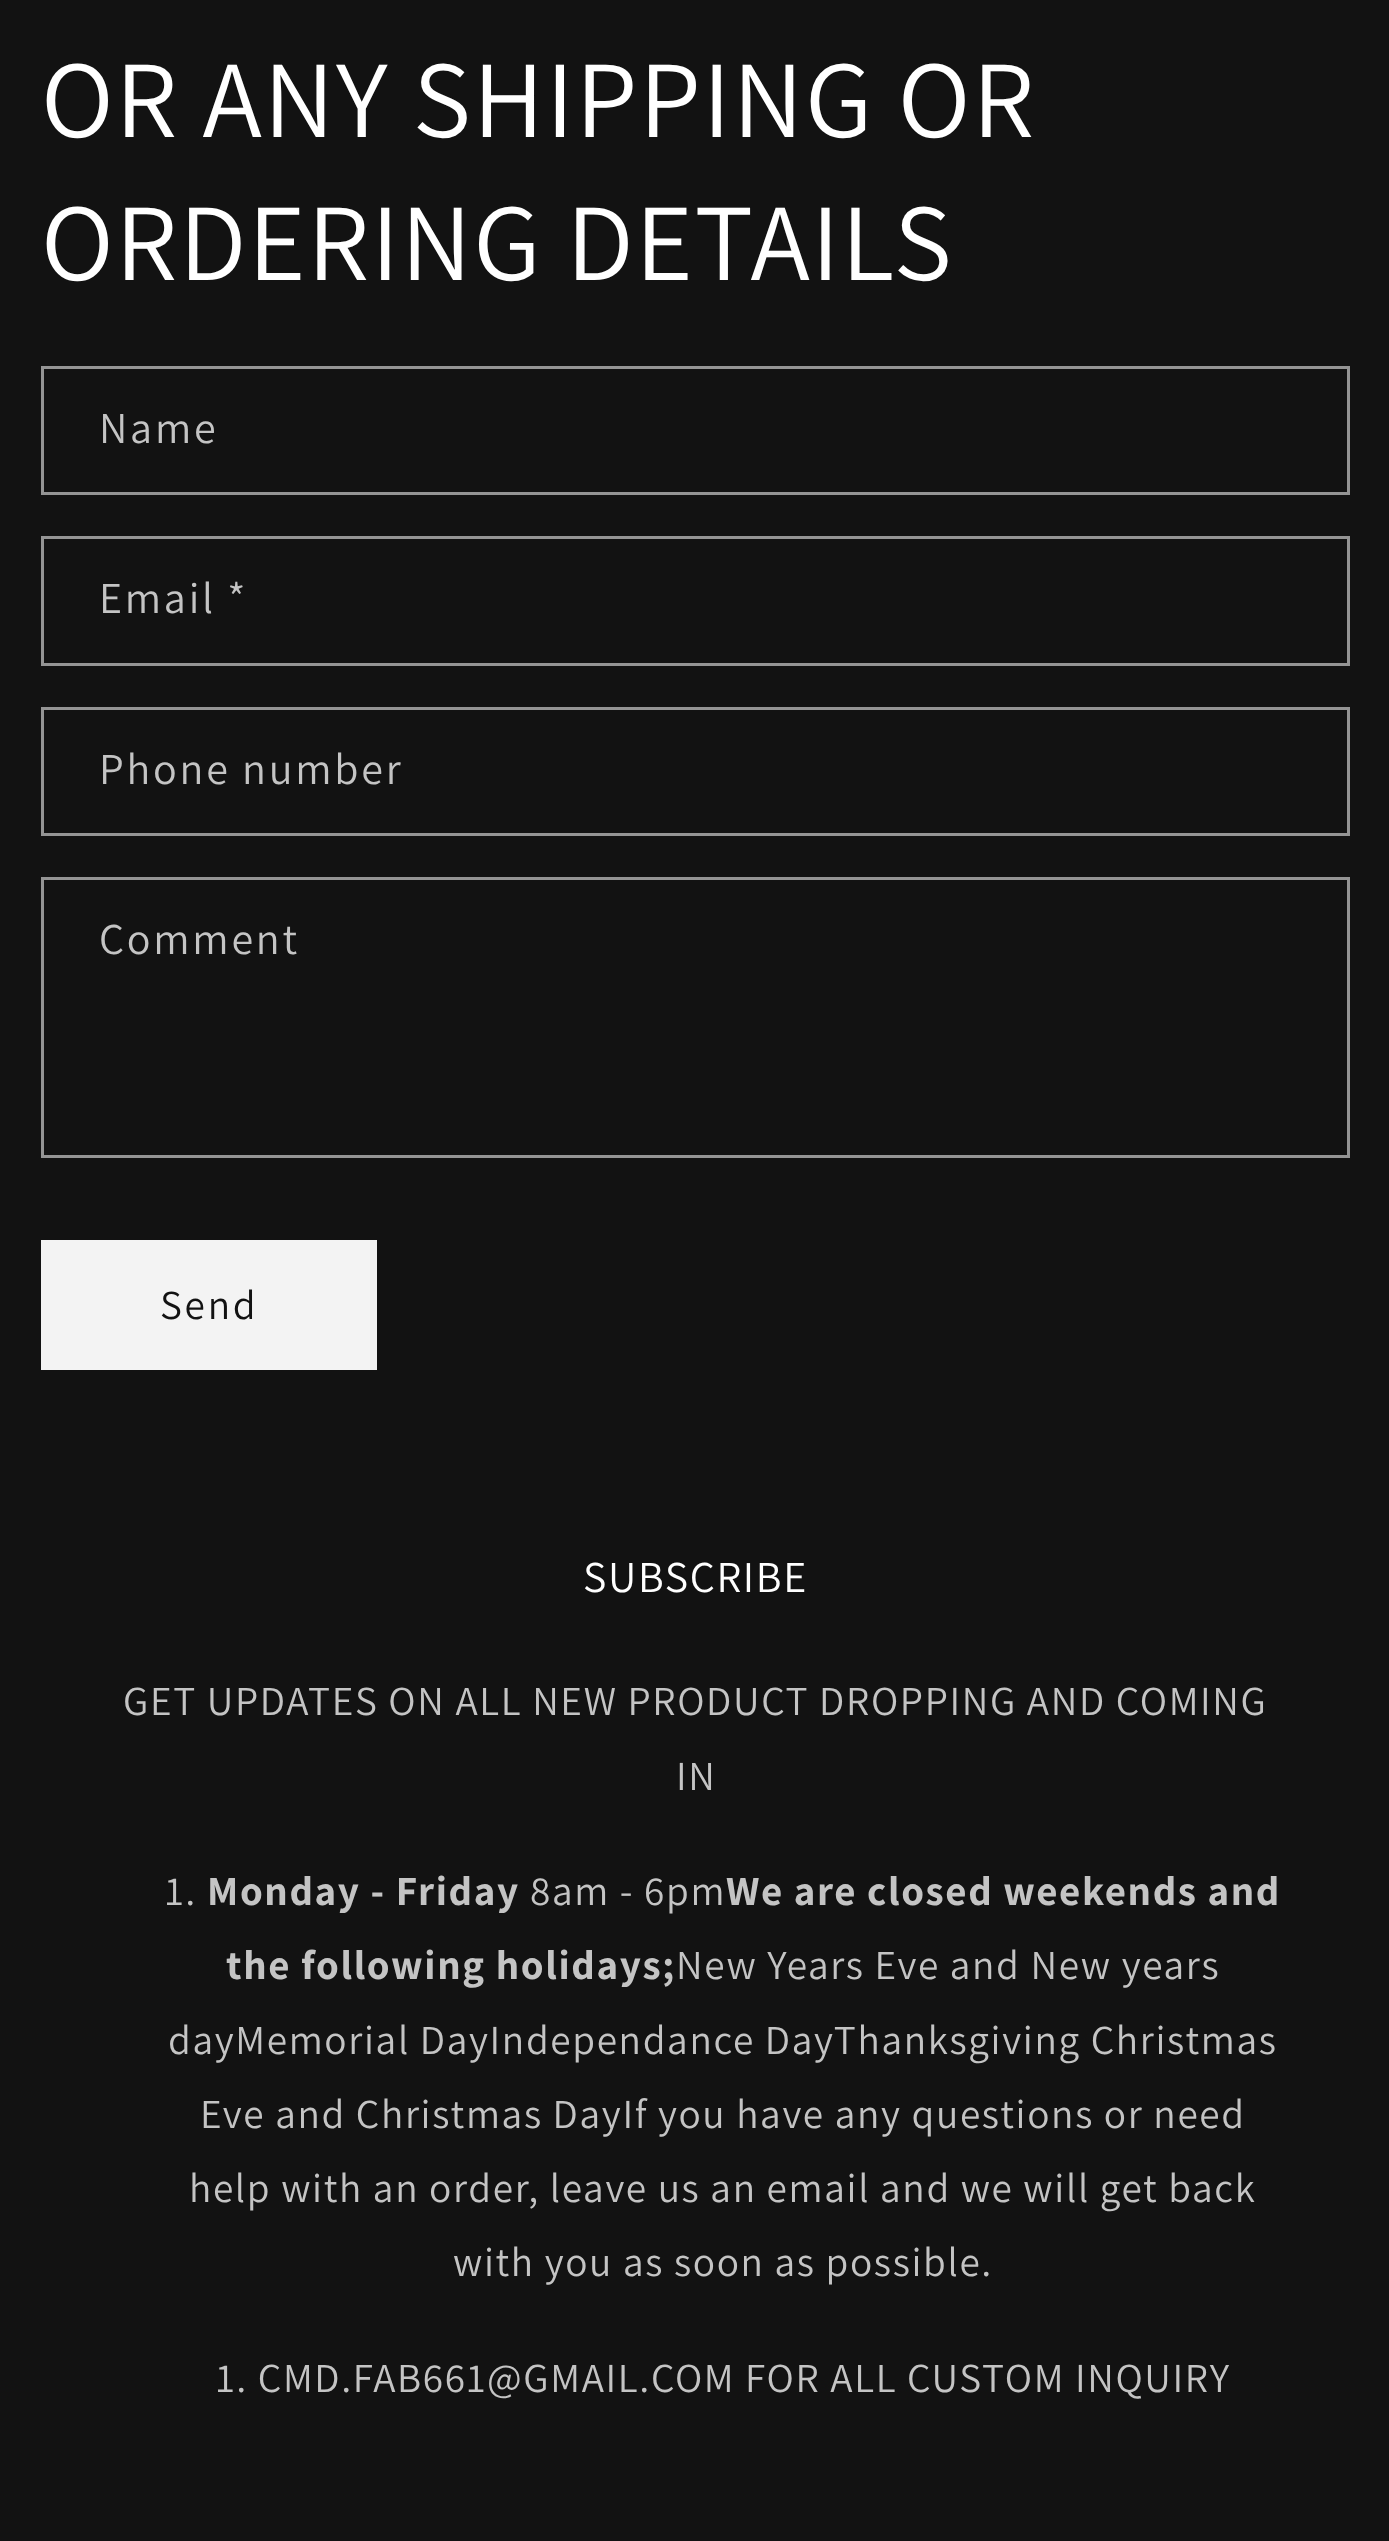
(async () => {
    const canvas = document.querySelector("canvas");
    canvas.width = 1389;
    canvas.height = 2541;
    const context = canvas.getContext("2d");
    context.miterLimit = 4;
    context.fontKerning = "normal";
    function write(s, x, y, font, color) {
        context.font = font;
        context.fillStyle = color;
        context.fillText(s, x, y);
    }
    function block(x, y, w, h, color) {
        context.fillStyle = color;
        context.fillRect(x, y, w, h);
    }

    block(0, 0, 1389, 2541, "rgb(18, 18, 18)");
    context.letterSpacing = "1.65px";
    write("OR ANY SHIPPING OR", 41, 137, "110px Assistant", "rgb(255, 255, 255)");
    write("ORDERING DETAILS", 41, 280, "110px Assistant", "rgb(255, 255, 255)");
    context.strokeStyle = "rgb(148, 148, 148)";
    context.lineWidth = 3;
    context.strokeRect(42.5, 367.5, 1306, 126);
    context.letterSpacing = "2.75px";
    write("Name", 99, 443, "44px Assistant", "rgb(196, 196, 196)");
    context.strokeRect(42.5, 537.5, 1306, 127);
    write("Email *", 99, 613, "44px Assistant", "rgb(196, 196, 196)");
    context.strokeRect(42.5, 708.5, 1306, 126);
    write("Phone number", 99, 784, "44px Assistant", "rgb(196, 196, 196)");
    context.strokeRect(42.5, 878.5, 1306, 278);
    write("Comment", 99, 954, "44px Assistant", "rgb(196, 196, 196)");
    block(41, 1240, 336, 130, "rgb(243, 243, 243)");
    write("Send", 160, 1319, "41.25px Assistant", "rgb(18, 18, 18)");
    context.letterSpacing = "1.65px";
    write("SUBSCRIBE", 583, 1592, "44px Assistant", "rgb(255, 255, 255)");
    write("GET UPDATES ON ALL NEW PRODUCT DROPPING AND COMING", 123, 1715, "41.25px Assistant", "rgb(196, 196, 196)");
    write("IN", 676, 1790, "41.25px Assistant", "rgb(196, 196, 196)");
    write("1.", 165, 1905, "41.25px Assistant", "rgb(196, 196, 196)");
    write("Monday - Friday", 207, 1905, "bold 41.25px Assistant", "rgb(196, 196, 196)");
    write("8am - 6pm", 530, 1905, "41.25px Assistant", "rgb(196, 196, 196)");
    write("We are closed weekends and", 726, 1905, "bold 41.25px Assistant", "rgb(196, 196, 196)");
    write("the following holidays;", 226, 1979, "bold 41.25px Assistant", "rgb(196, 196, 196)");
    write("New Years Eve and New years", 676, 1979, "41.25px Assistant", "rgb(196, 196, 196)");
    write("dayMemorial DayIndependance DayThanksgiving Christmas", 168, 2054, "41.25px Assistant", "rgb(196, 196, 196)");
    write("Eve and Christmas DayIf you have any questions or need", 200, 2128, "41.25px Assistant", "rgb(196, 196, 196)");
    write("help with an order, leave us an email and we will get back", 189, 2202, "41.25px Assistant", "rgb(196, 196, 196)");
    write("with you as soon as possible.", 453, 2276, "41.25px Assistant", "rgb(196, 196, 196)");
    write("1. CMD.FAB661@GMAIL.COM FOR ALL CUSTOM INQUIRY", 216, 2392, "41.25px Assistant", "rgb(196, 196, 196)");
})();
